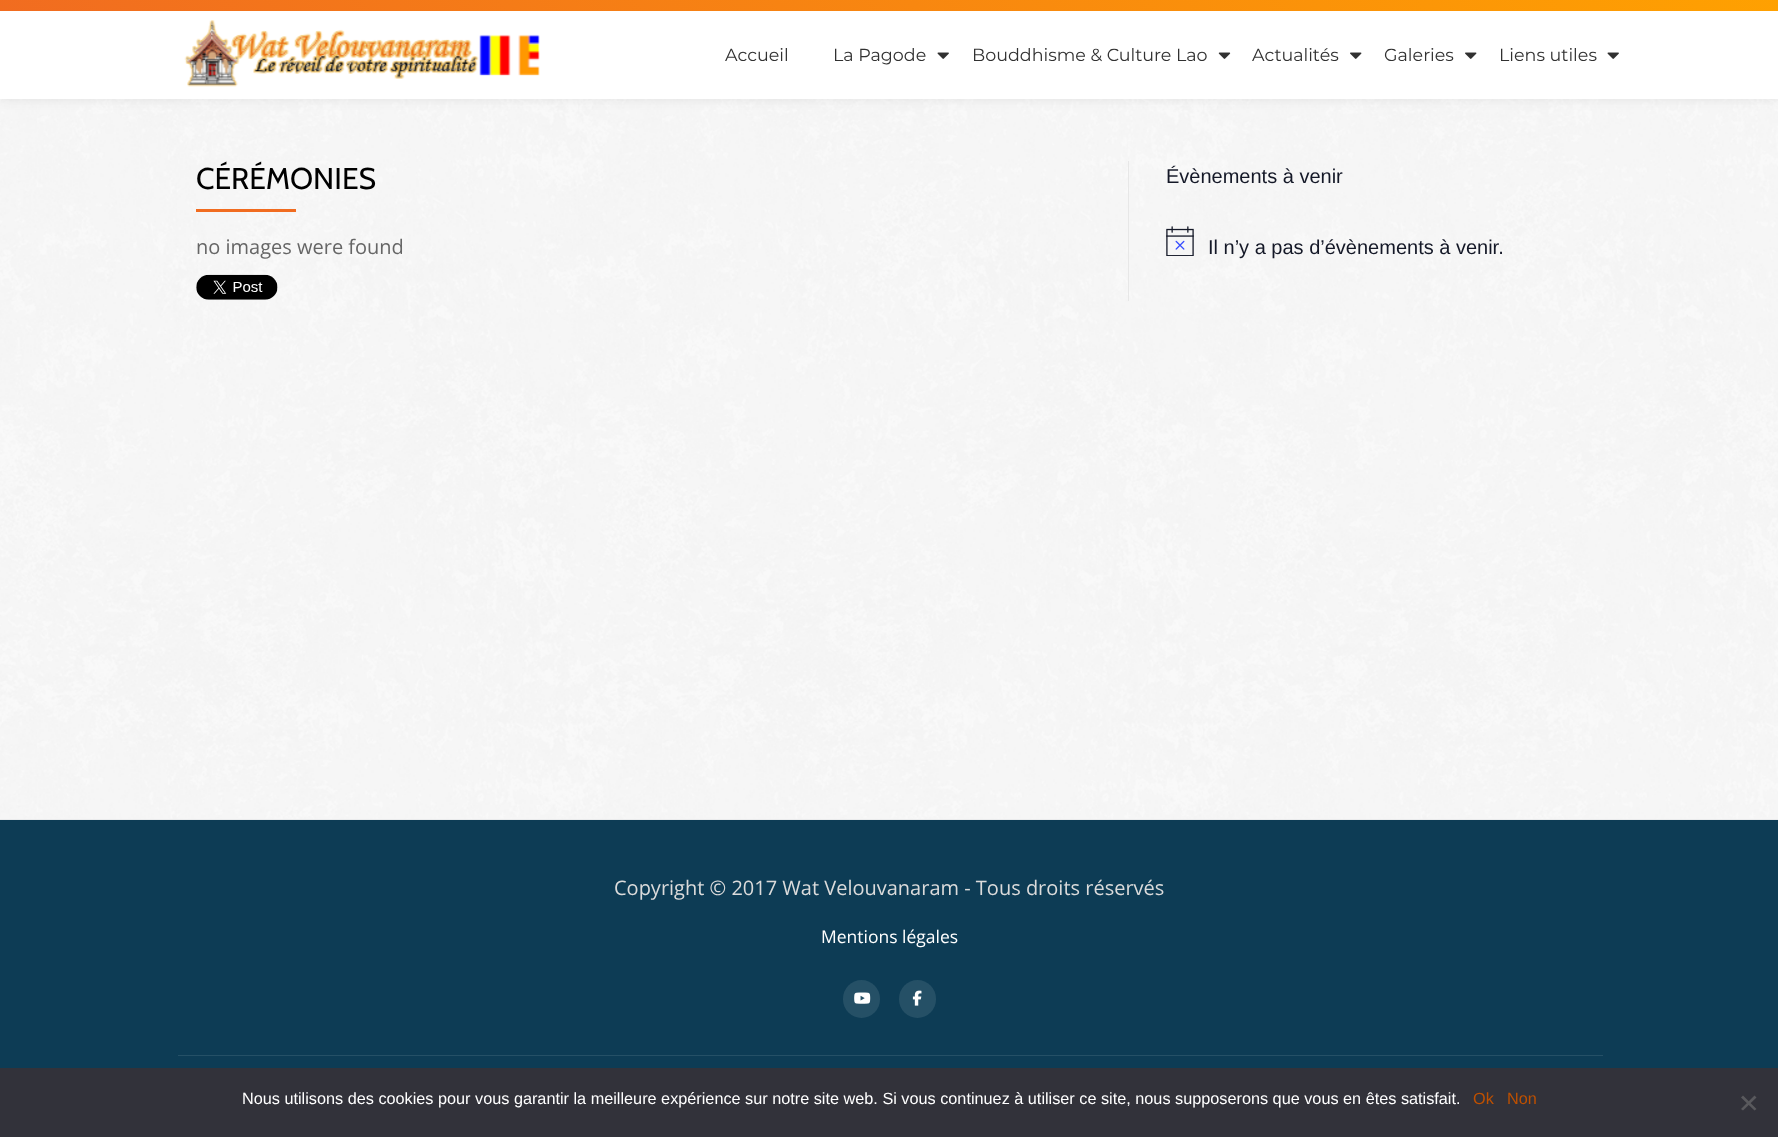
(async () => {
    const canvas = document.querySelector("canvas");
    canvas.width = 1778;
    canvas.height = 1137;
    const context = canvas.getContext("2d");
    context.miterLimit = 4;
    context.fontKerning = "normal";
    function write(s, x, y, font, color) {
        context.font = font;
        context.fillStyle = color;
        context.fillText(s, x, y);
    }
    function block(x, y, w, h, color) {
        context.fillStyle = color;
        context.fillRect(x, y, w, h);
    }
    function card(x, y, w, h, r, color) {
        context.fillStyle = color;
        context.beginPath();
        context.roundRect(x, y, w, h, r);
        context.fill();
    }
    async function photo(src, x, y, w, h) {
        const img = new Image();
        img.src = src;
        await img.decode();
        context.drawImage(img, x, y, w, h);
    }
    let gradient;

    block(0, 0, 1778, 1137, "rgb(255, 255, 255)");
    await photo("media/1.png", 0, 99, 1778, 720);
    context.fillStyle = "rgba(50, 50, 50, 0.08)";
    context.filter = "blur(5px)";
    context.beginPath();
    context.rect(0, -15, 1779, 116);
    context.fill();
    context.filter = "none";
    block(0, 11, 1778, 88, "rgb(255, 255, 255)");
    gradient = context.createLinearGradient(430, 441, 1349, -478);
    gradient.addColorStop(0, "rgb(241, 108, 32)");
    gradient.addColorStop(1, "rgb(255, 162, 0)");
    context.fillStyle = gradient;
    context.fillRect(0, 0, 1778, 11);
    await photo("media/2.png", 184, 20, 356, 67);
    write("Accueil", 725, 61, "17.5px Montserrat", "rgb(49, 49, 49)");
    write("La Pagode", 833, 61, "17.5px Montserrat", "rgb(49, 49, 49)");
    await photo("media/3.png", 937, 52, 12, 7);
    write("Bouddhisme & Culture Lao", 972, 61, "17.5px Montserrat", "rgb(49, 49, 49)");
    await photo("media/4.png", 1218, 52, 13, 7);
    write("Actualités", 1252, 61, "17.5px Montserrat", "rgb(49, 49, 49)");
    await photo("media/5.png", 1350, 52, 12, 7);
    write("Galeries", 1384, 61, "17.5px Montserrat", "rgb(49, 49, 49)");
    await photo("media/5.png", 1465, 52, 12, 7);
    write("Liens utiles", 1499, 61, "17.5px Montserrat", "rgb(49, 49, 49)");
    await photo("media/3.png", 1607, 52, 12, 7);
    write("CÉRÉMONIES", 196, 189, "30px Cabin", "rgb(0, 0, 0)");
    block(196, 209, 100, 3, "rgb(241, 108, 32)");
    write("no images were found", 196, 254, "20px Open Sans", "rgb(102, 102, 102)");
    await photo("media/6.png", 196, 274, 82, 26);
    block(1128, 161, 1, 140, "rgb(231, 231, 231)");
    write("Évènements à venir", 1166, 183, "20px Liberation Sans", "rgb(20, 24, 39)");
    await photo("media/7.png", 1166, 226, 28, 30);
    write("Il n’y a pas d’évènements à venir.", 1208, 254, "20px Liberation Sans", "rgb(20, 24, 39)");
    block(0, 820, 1778, 248, "rgb(13, 60, 85)");
    block(0, 819, 1778, 1, "rgb(234, 235, 236)");
    write("Copyright © 2017 Wat Velouvanaram - Tous droits réservés", 614, 895, "20px Open Sans", "rgb(219, 219, 219)");
    write("Mentions légales", 821, 943, "17.5px Open Sans", "rgb(255, 255, 255)");
    card(843, 980, 37, 38, 18.5, "rgb(37, 80, 102)");
    await photo("media/8.png", 854, 992, 17, 12);
    card(899, 980, 37, 38, 18.5, "rgb(37, 80, 102)");
    await photo("media/9.png", 912, 990, 10, 16);
    block(178, 1055, 1425, 1, "rgb(37, 80, 102)");
    block(0, 1068, 1778, 69, "rgb(50, 50, 58)");
    write("Nous utilisons des cookies pour vous garantir la meilleure expérience sur notre site web. Si vous continuez à utiliser ce site, nous supposerons que vous en êtes satisfait.", 242, 1104, "16.25px Liberation Sans", "rgb(255, 255, 255)");
    write("Ok", 1473, 1104, "16.25px Liberation Sans", "rgb(190, 80, 0)");
    write("Non", 1507, 1104, "16.25px Liberation Sans", "rgb(190, 80, 0)");
    context.fillStyle = "rgb(89, 89, 93)";
    context.beginPath();
    context.moveTo(1754.5, 1095.5);
    context.lineTo(1756.5, 1097.5);
    context.lineTo(1743, 1110.5);
    context.lineTo(1741, 1109);
    context.closePath();
    context.fill();
    context.beginPath();
    context.moveTo(1741, 1097.5);
    context.lineTo(1743, 1095.5);
    context.lineTo(1756.5, 1109);
    context.lineTo(1754.5, 1110.5);
    context.closePath();
    context.fill();
})();
